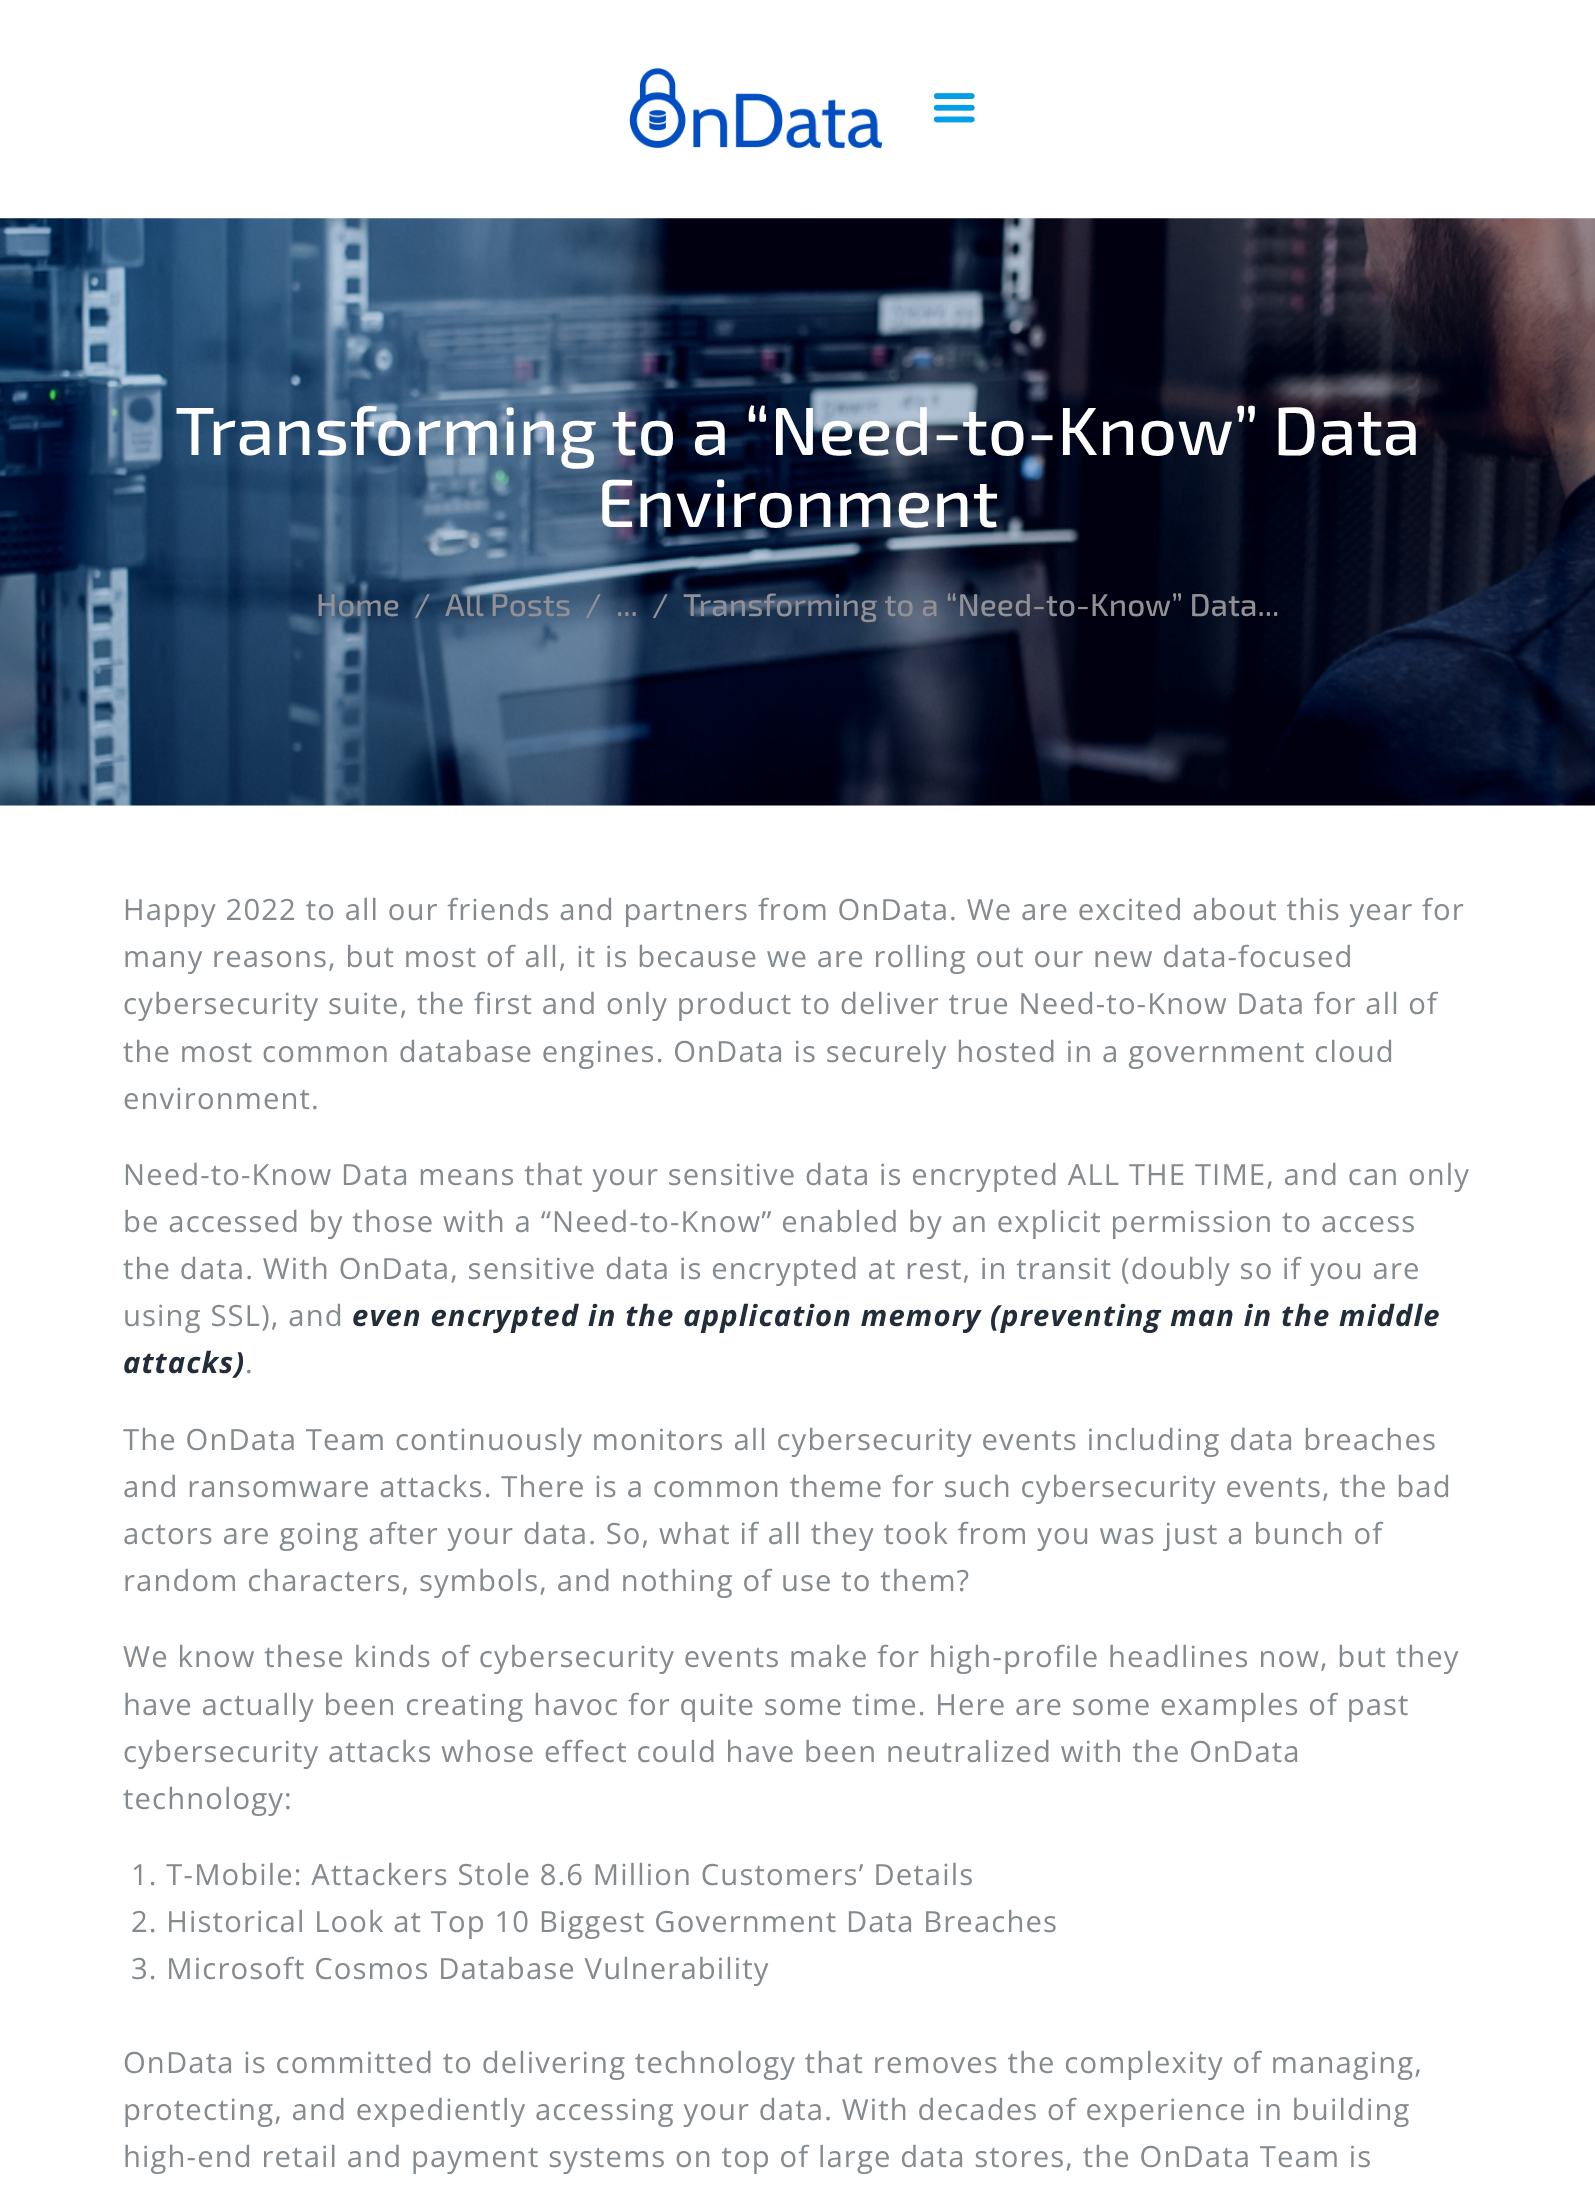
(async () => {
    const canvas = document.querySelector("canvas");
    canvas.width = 1595;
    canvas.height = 2198;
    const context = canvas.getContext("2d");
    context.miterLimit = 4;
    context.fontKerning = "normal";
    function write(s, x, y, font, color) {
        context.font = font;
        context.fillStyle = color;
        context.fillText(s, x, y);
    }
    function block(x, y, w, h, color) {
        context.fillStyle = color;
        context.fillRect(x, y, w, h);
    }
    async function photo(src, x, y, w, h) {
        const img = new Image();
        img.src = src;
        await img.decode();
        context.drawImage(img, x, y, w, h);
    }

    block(0, 0, 1595, 2198, "rgb(255, 255, 255)");
    await photo("media/1.png", 629, 68, 254, 81);
    await photo("media/2.png", 933, 93, 42, 30);
    block(0, 218, 1595, 588, "rgb(247, 247, 247)");
    await photo("media/3.png", 0, 218, 1595, 588);
    write("Transforming to a “Need-to-Know” Data", 175, 455, "500 68.3px 'Exo 2'", "rgb(255, 255, 255)");
    write("Environment", 597, 527, "500 68.3px 'Exo 2'", "rgb(255, 255, 255)");
    write("Home", 316, 616, "500 31.5px 'Exo 2'", "rgb(146, 144, 148)");
    write("/", 414, 616, "500 31.5px 'Exo 2'", "rgb(146, 144, 148)");
    write("All Posts", 445, 616, "500 31.5px 'Exo 2'", "rgb(146, 144, 148)");
    write("/", 585, 616, "500 31.5px 'Exo 2'", "rgb(146, 144, 148)");
    write("...", 616, 616, "500 31.5px 'Exo 2'", "rgb(146, 144, 148)");
    write("/", 652, 616, "500 31.5px 'Exo 2'", "rgb(146, 144, 148)");
    write("Transforming to a “Need-to-Know” Data...", 683, 616, "500 31.5px 'Exo 2'", "rgb(146, 144, 148)");
    context.letterSpacing = "1.12px";
    write("Happy 2022 to all our friends and partners from OnData. We are excited about this year for", 123, 920, "29.25px Open Sans", "rgb(132, 138, 142)");
    write("many reasons, but most of all, it is because we are rolling out our new data-focused", 123, 967, "29.25px Open Sans", "rgb(132, 138, 142)");
    write("cybersecurity suite, the first and only product to deliver true Need-to-Know Data for all of", 123, 1014, "29.25px Open Sans", "rgb(132, 138, 142)");
    write("the most common database engines. OnData is securely hosted in a government cloud", 123, 1062, "29.25px Open Sans", "rgb(132, 138, 142)");
    write("environment.", 123, 1109, "29.25px Open Sans", "rgb(132, 138, 142)");
    write("Need-to-Know Data means that your sensitive data is encrypted ALL THE TIME, and can only", 123, 1185, "29.25px Open Sans", "rgb(132, 138, 142)");
    write("be accessed by those with a “Need-to-Know” enabled by an explicit permission to access", 123, 1232, "29.25px Open Sans", "rgb(132, 138, 142)");
    write("the data. With OnData, sensitive data is encrypted at rest, in transit (doubly so if you are", 123, 1279, "29.25px Open Sans", "rgb(132, 138, 142)");
    write("using SSL), and", 123, 1326, "29.25px Open Sans", "rgb(132, 138, 142)");
    write("even encrypted in the application memory (preventing man in the middle", 352, 1326, "italic bold 29.25px Open Sans", "rgb(34, 45, 57)");
    write("attacks)", 123, 1373, "italic bold 29.25px Open Sans", "rgb(34, 45, 57)");
    write(".", 245, 1373, "29.25px Open Sans", "rgb(132, 138, 142)");
    write("The OnData Team continuously monitors all cybersecurity events including data breaches", 123, 1450, "29.25px Open Sans", "rgb(132, 138, 142)");
    write("and ransomware attacks. There is a common theme for such cybersecurity events, the bad", 123, 1497, "29.25px Open Sans", "rgb(132, 138, 142)");
    write("actors are going after your data. So, what if all they took from you was just a bunch of", 123, 1544, "29.25px Open Sans", "rgb(132, 138, 142)");
    write("random characters, symbols, and nothing of use to them?", 123, 1591, "29.25px Open Sans", "rgb(132, 138, 142)");
    write("We know these kinds of cybersecurity events make for high-profile headlines now, but they", 123, 1667, "29.25px Open Sans", "rgb(132, 138, 142)");
    write("have actually been creating havoc for quite some time. Here are some examples of past", 123, 1715, "29.25px Open Sans", "rgb(132, 138, 142)");
    write("cybersecurity attacks whose effect could have been neutralized with the OnData", 123, 1762, "29.25px Open Sans", "rgb(132, 138, 142)");
    write("technology:", 123, 1809, "29.25px Open Sans", "rgb(132, 138, 142)");
    write("1. T-Mobile: Attackers Stole 8.6 Million Customers’ Details", 131, 1885, "29.25px Open Sans", "rgb(132, 138, 142)");
    write("2. Historical Look at Top 10 Biggest Government Data Breaches", 131, 1932, "29.25px Open Sans", "rgb(132, 138, 142)");
    write("3. Microsoft Cosmos Database Vulnerability", 131, 1979, "29.25px Open Sans", "rgb(132, 138, 142)");
    write("OnData is committed to delivering technology that removes the complexity of managing,", 123, 2073, "29.25px Open Sans", "rgb(132, 138, 142)");
    write("protecting, and expediently accessing your data. With decades of experience in building", 123, 2120, "29.25px Open Sans", "rgb(132, 138, 142)");
    write("high-end retail and payment systems on top of large data stores, the OnData Team is", 123, 2167, "29.25px Open Sans", "rgb(132, 138, 142)");
})();
